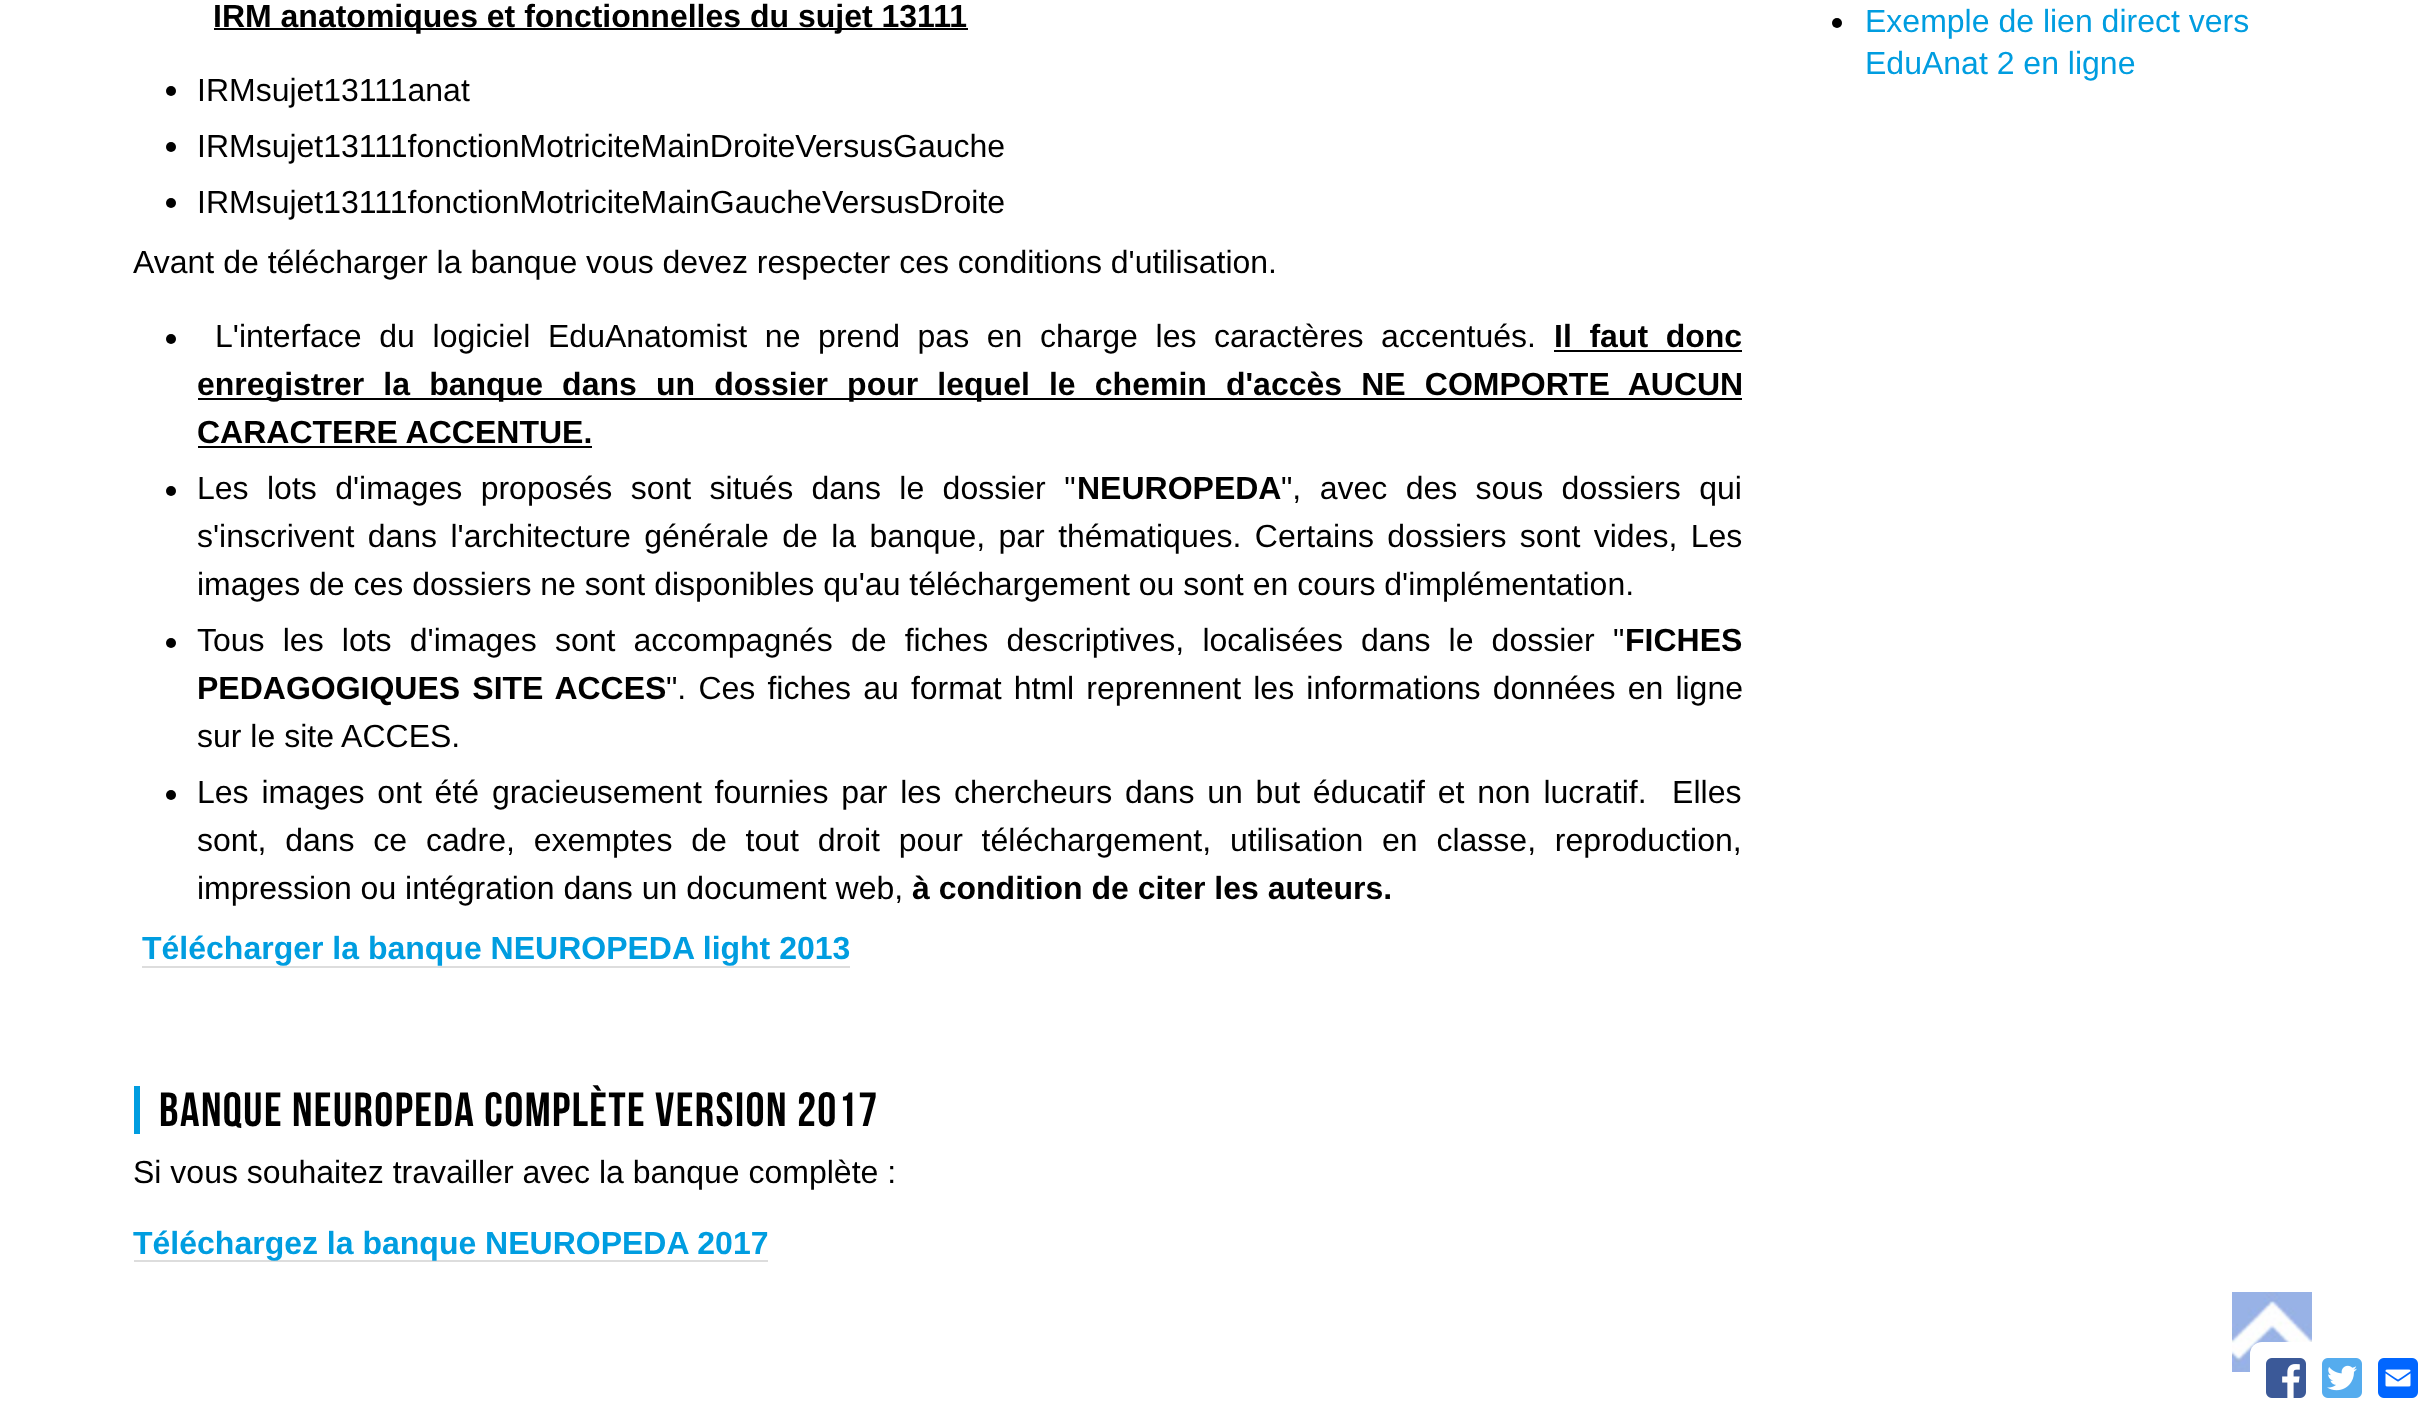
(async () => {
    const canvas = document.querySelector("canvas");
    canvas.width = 2434;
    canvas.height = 1414;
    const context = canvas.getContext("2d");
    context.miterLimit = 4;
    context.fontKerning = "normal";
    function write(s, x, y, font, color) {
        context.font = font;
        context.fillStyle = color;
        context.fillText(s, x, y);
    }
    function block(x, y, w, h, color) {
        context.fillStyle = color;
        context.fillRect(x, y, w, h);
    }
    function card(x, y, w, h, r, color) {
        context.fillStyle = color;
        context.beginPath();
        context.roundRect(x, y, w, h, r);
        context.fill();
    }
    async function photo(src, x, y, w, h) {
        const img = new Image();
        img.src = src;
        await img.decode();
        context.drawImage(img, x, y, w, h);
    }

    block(0, 0, 2434, 1414, "rgb(255, 255, 255)");
    block(214, 28, 754, 2, "rgb(0, 0, 0)");
    write("IRM anatomiques et fonctionnelles du sujet 13111", 213, 27, "bold 32px Liberation Sans", "rgb(0, 0, 0)");
    context.beginPath();
    context.arc(171, 91, 5, 0, Math.PI * 2);
    context.fill();
    write("IRMsujet13111anat", 197, 101, "32px Liberation Sans", "rgb(0, 0, 0)");
    context.beginPath();
    context.arc(171, 147, 5, 0, Math.PI * 2);
    context.fill();
    write("IRMsujet13111fonctionMotriciteMainDroiteVersusGauche", 197, 157, "32px Liberation Sans", "rgb(0, 0, 0)");
    context.beginPath();
    context.arc(171, 203, 5, 0, Math.PI * 2);
    context.fill();
    write("IRMsujet13111fonctionMotriciteMainGaucheVersusDroite", 197, 213, "32px Liberation Sans", "rgb(0, 0, 0)");
    write("Avant de télécharger la banque vous devez respecter ces conditions d'utilisation.", 133, 273, "32px Liberation Sans", "rgb(0, 0, 0)");
    context.beginPath();
    context.arc(171, 339, 5, 0, Math.PI * 2);
    context.fill();
    context.wordSpacing = "8.75px";
    write("L'interface du logiciel EduAnatomist ne prend pas en charge les caractères accentués.", 215, 347, "32px Liberation Sans", "rgb(0, 0, 0)");
    write("Il faut donc", 1554, 347, "bold 32px Liberation Sans", "rgb(0, 0, 0)");
    block(1554, 350, 188, 2, "rgb(0, 0, 0)");
    block(198, 398, 1544, 2, "rgb(0, 0, 0)");
    context.wordSpacing = "10.25px";
    write("enregistrer la banque dans un dossier pour lequel le chemin d'accès NE COMPORTE AUCUN", 197, 395, "bold 32px Liberation Sans", "rgb(0, 0, 0)");
    context.wordSpacing = "0px";
    write("CARACTERE ACCENTUE.", 197, 443, "bold 32px Liberation Sans", "rgb(0, 0, 0)");
    block(198, 446, 394, 2, "rgb(0, 0, 0)");
    context.beginPath();
    context.arc(171, 491, 5, 0, Math.PI * 2);
    context.fill();
    context.wordSpacing = "9.5px";
    write("Les lots d'images proposés sont situés dans le dossier \"", 197, 499, "32px Liberation Sans", "rgb(0, 0, 0)");
    context.wordSpacing = "0px";
    write("NEUROPEDA", 1077, 499, "bold 32px Liberation Sans", "rgb(0, 0, 0)");
    context.wordSpacing = "9.5px";
    write("\", avec des sous dossiers qui", 1281, 499, "32px Liberation Sans", "rgb(0, 0, 0)");
    context.wordSpacing = "4.5px";
    write("s'inscrivent dans l'architecture générale de la banque, par thématiques. Certains dossiers sont vides, Les", 197, 547, "32px Liberation Sans", "rgb(0, 0, 0)");
    context.wordSpacing = "0px";
    write("images de ces dossiers ne sont disponibles qu'au téléchargement ou sont en cours d'implémentation.", 197, 595, "32px Liberation Sans", "rgb(0, 0, 0)");
    context.beginPath();
    context.arc(171, 643, 5, 0, Math.PI * 2);
    context.fill();
    context.wordSpacing = "9.25px";
    write("Tous les lots d'images sont accompagnés de fiches descriptives, localisées dans le dossier \"", 197, 651, "32px Liberation Sans", "rgb(0, 0, 0)");
    context.wordSpacing = "0px";
    write("FICHES", 1625, 651, "bold 32px Liberation Sans", "rgb(0, 0, 0)");
    context.wordSpacing = "3.25px";
    write("PEDAGOGIQUES SITE ACCES", 197, 699, "bold 32px Liberation Sans", "rgb(0, 0, 0)");
    write("\". Ces fiches au format html reprennent les informations données en ligne", 666, 699, "32px Liberation Sans", "rgb(0, 0, 0)");
    context.wordSpacing = "0px";
    write("sur le site ACCES.", 197, 747, "32px Liberation Sans", "rgb(0, 0, 0)");
    context.beginPath();
    context.arc(171, 795, 5, 0, Math.PI * 2);
    context.fill();
    context.wordSpacing = "3.9px";
    write("Les images ont été gracieusement fournies par les chercheurs dans un but éducatif et non lucratif.  Elles", 197, 803, "32px Liberation Sans", "rgb(0, 0, 0)");
    context.wordSpacing = "9.9px";
    write("sont, dans ce cadre, exemptes de tout droit pour téléchargement, utilisation en classe, reproduction,", 197, 851, "32px Liberation Sans", "rgb(0, 0, 0)");
    context.wordSpacing = "0px";
    write("impression ou intégration dans un document web,", 197, 899, "32px Liberation Sans", "rgb(0, 0, 0)");
    write("à condition de citer les auteurs.", 912, 899, "bold 32px Liberation Sans", "rgb(0, 0, 0)");
    write("Télécharger la banque NEUROPEDA light 2013", 142, 959, "bold 32px Liberation Sans", "rgb(0, 157, 224)");
    block(142, 966, 708, 2, "rgb(221, 221, 221)");
    block(134, 1086, 6, 48, "rgb(0, 157, 224)");
    context.letterSpacing = "1.45px";
    write("Banque NeuroPeda complète version 2017", 159, 1126, "48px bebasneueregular", "rgb(0, 0, 0)");
    context.letterSpacing = "0px";
    write("Si vous souhaitez travailler avec la banque complète :", 133, 1183, "32px Liberation Sans", "rgb(0, 0, 0)");
    block(134, 1260, 634, 2, "rgb(221, 221, 221)");
    write("Téléchargez la banque NEUROPEDA 2017", 133, 1254, "bold 32px Liberation Sans", "rgb(0, 157, 224)");
    await photo("media/4.png", 2232, 1292, 80, 80);
    card(2250, 1342, 184, 72, 12, "rgb(255, 255, 255)");
    await photo("media/1.png", 2266, 1358, 40, 40);
    await photo("media/2.png", 2322, 1358, 40, 40);
    await photo("media/3.png", 2378, 1358, 40, 40);
    context.fillStyle = "rgb(0, 0, 0)";
    context.beginPath();
    context.arc(1837, 23, 5, 0, Math.PI * 2);
    context.fill();
    write("Exemple de lien direct vers", 1865, 32, "32px Liberation Sans", "rgb(0, 157, 224)");
    write("EduAnat 2 en ligne", 1865, 74, "32px Liberation Sans", "rgb(0, 157, 224)");
})();
